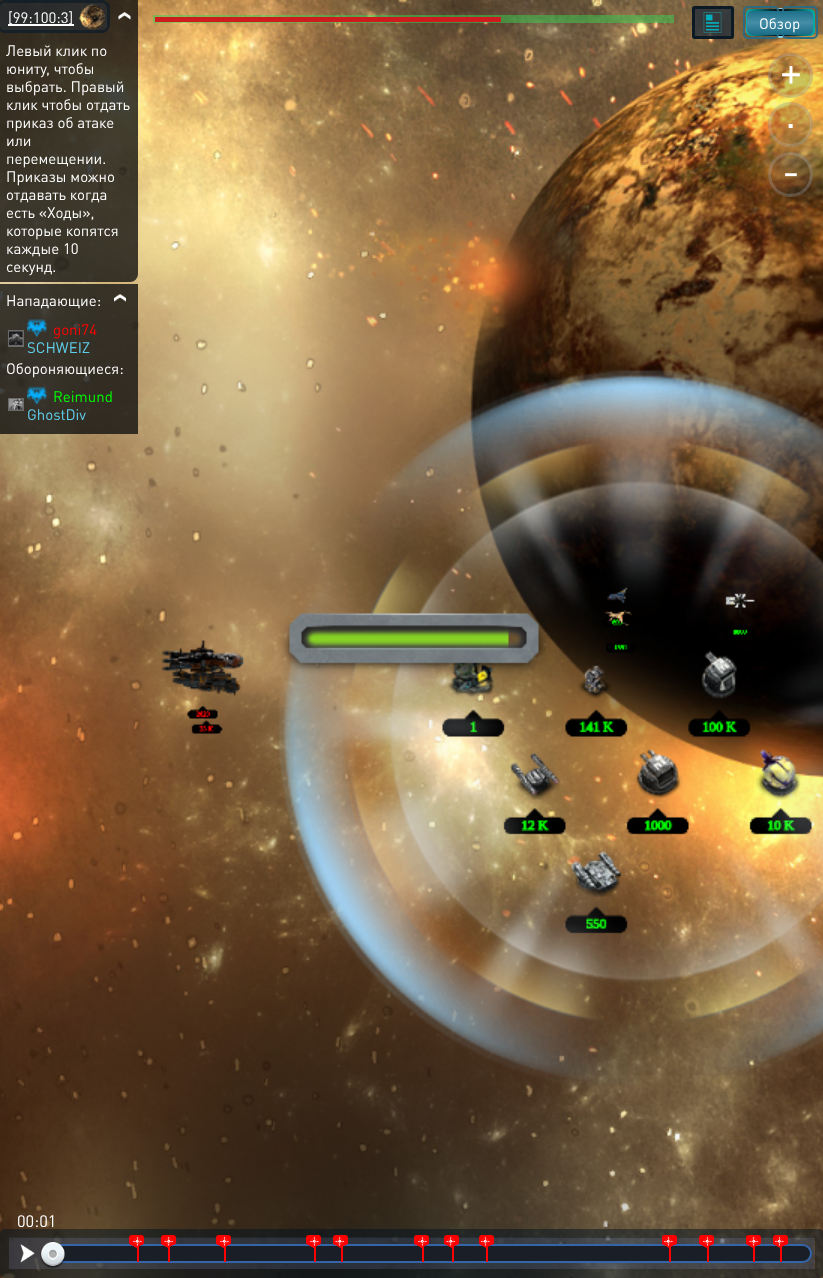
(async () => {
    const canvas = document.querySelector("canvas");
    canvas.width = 823;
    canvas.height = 1278;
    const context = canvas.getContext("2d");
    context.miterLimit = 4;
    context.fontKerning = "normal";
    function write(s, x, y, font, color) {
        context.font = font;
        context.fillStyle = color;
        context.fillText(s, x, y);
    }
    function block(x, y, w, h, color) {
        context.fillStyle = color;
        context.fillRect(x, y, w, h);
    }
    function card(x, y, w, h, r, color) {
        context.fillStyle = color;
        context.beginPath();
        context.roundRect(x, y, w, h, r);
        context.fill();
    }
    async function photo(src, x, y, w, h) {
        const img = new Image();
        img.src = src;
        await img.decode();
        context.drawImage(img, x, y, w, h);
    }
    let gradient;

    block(0, 0, 823, 1278, "rgb(255, 255, 255)");
    await photo("media/1.png", 0, 0, 823, 1278);
    context.fillStyle = "rgba(17, 17, 17, 0.8)";
    context.beginPath();
    context.roundRect(0, 0, 138, 282, [0, 0, 8, 0]);
    context.fill();
    card(-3, 0, 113, 33, 8, "rgba(37, 47, 59, 0.5)");
    context.fillStyle = "rgba(1, 19, 31, 0.5)";
    context.beginPath();
    context.moveTo(5, 0);
    context.bezierCurveTo(3, 0, 1, 1, 0, 2);
    context.lineTo(0, 8);
    context.bezierCurveTo(0, 5, 2, 3, 5, 3);
    context.lineTo(102, 3);
    context.bezierCurveTo(105, 3, 107, 5, 107, 8);
    context.lineTo(107, 25);
    context.bezierCurveTo(107, 28, 105, 30, 102, 30);
    context.lineTo(5, 30);
    context.bezierCurveTo(2, 30, 0, 28, 0, 25);
    context.lineTo(0, 31);
    context.bezierCurveTo(1, 32, 3, 33, 5, 33);
    context.lineTo(102, 33);
    context.bezierCurveTo(106, 33, 110, 29, 110, 25);
    context.lineTo(110, 8);
    context.bezierCurveTo(110, 4, 106, 0, 102, 0);
    context.closePath();
    context.fill();
    block(8, 24, 66, 2, "rgb(255, 255, 255)");
    write("[99:100:3]", 8, 23, "15px DIN", "rgb(255, 255, 255)");
    await photo("media/2.png", 79, 4, 14, 13);
    await photo("media/3.png", 79, 4, 26, 26);
    await photo("media/4.png", 118, 12, 13, 8);
    write("Левый клик по", 6, 56, "15px DIN", "rgb(255, 255, 255)");
    write("юниту, чтобы", 6, 74, "15px DIN", "rgb(255, 255, 255)");
    write("выбрать. Правый", 6, 92, "15px DIN", "rgb(255, 255, 255)");
    write("клик чтобы отдать", 6, 110, "15px DIN", "rgb(255, 255, 255)");
    write("приказ об атаке", 6, 128, "15px DIN", "rgb(255, 255, 255)");
    write("или", 6, 146, "15px DIN", "rgb(255, 255, 255)");
    write("перемещении.", 6, 164, "15px DIN", "rgb(255, 255, 255)");
    write("Приказы можно", 6, 182, "15px DIN", "rgb(255, 255, 255)");
    write("отдавать когда", 6, 200, "15px DIN", "rgb(255, 255, 255)");
    write("есть «Ходы»,", 6, 218, "15px DIN", "rgb(255, 255, 255)");
    write("которые копятся", 6, 236, "15px DIN", "rgb(255, 255, 255)");
    write("каждые 10", 6, 254, "15px DIN", "rgb(255, 255, 255)");
    write("секунд.", 6, 272, "15px DIN", "rgb(255, 255, 255)");
    block(0, 284, 138, 150, "rgba(17, 17, 17, 0.8)");
    block(153, 15, 521, 8, "rgba(58, 207, 81, 0.5)");
    block(155, 17, 346, 5, "rgb(206, 27, 30)");
    await photo("media/5.png", 114, 294, 12, 8);
    write("Нападающие:", 6, 306, "15px DIN", "rgb(255, 255, 255)");
    context.strokeStyle = "rgba(111, 111, 111, 0.93)";
    context.lineWidth = 2;
    context.strokeRect(9, 331, 14, 15);
    await photo("media/6.png", 9, 331, 14, 14);
    await photo("media/7.png", 27, 319, 20, 19);
    write("goni74", 53, 335, "15px DIN", "rgb(255, 0, 0)");
    write("SCHWEIZ", 27, 353, "15px DIN", "rgb(96, 207, 236)");
    write("Обороняющиеся:", 6, 374, "15px DIN", "rgb(255, 255, 255)");
    context.strokeRect(9, 399, 14, 11);
    await photo("media/8.png", 9, 399, 14, 11);
    await photo("media/9.png", 27, 386, 20, 20);
    write("Reimund", 53, 402, "15px DIN", "rgb(0, 255, 0)");
    write("GhostDiv", 27, 420, "15px DIN", "rgb(96, 207, 236)");
    card(692, 6, 42, 33, 3, "rgba(37, 47, 59, 0.8)");
    await photo("media/10.png", 703, 12, 19, 21);
    context.beginPath();
    context.roundRect(693.5, 7.5, 39, 30, 1.5);
    context.strokeStyle = "rgba(1, 19, 31, 0.8)";
    context.lineWidth = 3;
    context.stroke();
    context.beginPath();
    context.roundRect(777, 9, 7, 28, 3.5);
    context.strokeStyle = "rgb(137, 220, 250)";
    context.lineWidth = 2;
    context.stroke();
    gradient = context.createLinearGradient(746, 23, 815, 22);
    gradient.addColorStop(0, "rgb(2, 175, 175)");
    gradient.addColorStop(0.5, "rgb(0, 3, 10)");
    gradient.addColorStop(1, "rgb(2, 175, 175)");
    context.fillStyle = gradient;
    context.beginPath();
    context.roundRect(746, 9, 69, 27, 5);
    context.fill();
    context.beginPath();
    context.roundRect(744, 7, 34, 31, 4);
    context.strokeStyle = "rgb(46, 107, 128)";
    context.stroke();
    context.beginPath();
    context.roundRect(783, 7, 34, 31, 4);
    context.stroke();
    gradient = context.createLinearGradient(780, 10, 780, 35);
    gradient.addColorStop(0, "rgb(26, 109, 135)");
    gradient.addColorStop(0.5, "rgb(69, 141, 167)");
    gradient.addColorStop(1, "rgb(26, 109, 135)");
    context.fillStyle = gradient;
    context.beginPath();
    context.roundRect(747, 11, 66, 24, 5);
    context.fill();
    write("Обзор", 759, 29, "15px DIN", "rgb(255, 255, 255)");
    context.fillStyle = "rgba(21, 31, 49, 0.2)";
    context.beginPath();
    context.arc(790.5, 75.5, 22.5, 0, Math.PI * 2);
    context.fill();
    context.beginPath();
    context.arc(790.5, 75.5, 21, 0, Math.PI * 2);
    context.strokeStyle = "rgba(235, 235, 235, 0.2)";
    context.lineWidth = 3;
    context.stroke();
    write("+", 780, 86, "42px DIN", "rgb(255, 255, 255)");
    context.fillStyle = "rgba(21, 31, 49, 0.2)";
    context.beginPath();
    context.arc(790.5, 124.5, 22.5, 0, Math.PI * 2);
    context.fill();
    context.beginPath();
    context.arc(790.5, 124.5, 21, 0, Math.PI * 2);
    context.stroke();
    write(".", 785, 128, "42px DIN", "rgb(255, 255, 255)");
    context.fillStyle = "rgba(21, 31, 49, 0.2)";
    context.beginPath();
    context.arc(790.5, 174.5, 22.5, 0, Math.PI * 2);
    context.fill();
    context.beginPath();
    context.arc(790.5, 174.5, 21, 0, Math.PI * 2);
    context.stroke();
    write("-", 782, 186, "42px DIN", "rgb(255, 255, 255)");
    context.beginPath();
    context.roundRect(4.5, 1233.5, 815, 40, 0.5);
    context.strokeStyle = "rgba(1, 19, 31, 0.5)";
    context.lineWidth = 9;
    context.stroke();
    write("00:01", 17, 1227, "16.5px DIN", "rgb(255, 255, 255)");
    await photo("media/17.png", 9, 1237, 806, 32);
    await photo("media/11.png", 20, 1244, 15, 19);
    context.fillStyle = "rgb(26, 31, 39)";
    context.beginPath();
    context.roundRect(48, 1245, 763, 17, 8.5);
    context.fill();
    context.strokeStyle = "rgb(52, 101, 169)";
    context.lineWidth = 2;
    context.stroke();
    await photo("media/12.png", 40, 1242, 25, 27);
    block(137, 1245, 2, 17, "rgb(255, 0, 0)");
    card(129, 1235, 15, 10, 3, "rgb(255, 0, 0)");
    context.beginPath();
    context.moveTo(129, 1243.5);
    context.lineTo(144, 1243.5);
    context.lineTo(136.5, 1248);
    context.closePath();
    context.fill();
    await photo("media/13.png", 133, 1237, 9, 9);
    block(168, 1245, 2, 17, "rgb(255, 0, 0)");
    card(161, 1235, 15, 10, 3, "rgb(255, 0, 0)");
    context.beginPath();
    context.moveTo(160.5, 1243.5);
    context.lineTo(175.5, 1243.5);
    context.lineTo(168, 1248);
    context.closePath();
    context.fill();
    await photo("media/14.png", 164, 1237, 10, 9);
    block(224, 1245, 2, 17, "rgb(255, 0, 0)");
    card(216, 1235, 15, 10, 3, "rgb(255, 0, 0)");
    context.beginPath();
    context.moveTo(216, 1243.5);
    context.lineTo(231, 1243.5);
    context.lineTo(223.5, 1248);
    context.closePath();
    context.fill();
    await photo("media/13.png", 220, 1237, 9, 9);
    block(314, 1245, 2, 17, "rgb(255, 0, 0)");
    card(306, 1235, 15, 10, 3, "rgb(255, 0, 0)");
    context.beginPath();
    context.moveTo(306, 1243.5);
    context.lineTo(321, 1243.5);
    context.lineTo(313.5, 1248);
    context.closePath();
    context.fill();
    await photo("media/13.png", 310, 1237, 9, 9);
    block(341, 1245, 2, 17, "rgb(255, 0, 0)");
    card(333, 1235, 15, 10, 3, "rgb(255, 0, 0)");
    context.beginPath();
    context.moveTo(333, 1243.5);
    context.lineTo(348, 1243.5);
    context.lineTo(340.5, 1248);
    context.closePath();
    context.fill();
    await photo("media/15.png", 335, 1237, 10, 9);
    block(422, 1245, 2, 17, "rgb(255, 0, 0)");
    card(414, 1235, 15, 10, 3, "rgb(255, 0, 0)");
    context.beginPath();
    context.moveTo(414, 1243.5);
    context.lineTo(429, 1243.5);
    context.lineTo(421.5, 1248);
    context.closePath();
    context.fill();
    await photo("media/13.png", 418, 1237, 9, 9);
    block(452, 1245, 2, 17, "rgb(255, 0, 0)");
    card(444, 1235, 15, 10, 3, "rgb(255, 0, 0)");
    context.beginPath();
    context.moveTo(444, 1243.5);
    context.lineTo(459, 1243.5);
    context.lineTo(451.5, 1248);
    context.closePath();
    context.fill();
    await photo("media/15.png", 446, 1237, 10, 9);
    block(486, 1245, 2, 17, "rgb(255, 0, 0)");
    card(479, 1235, 15, 10, 3, "rgb(255, 0, 0)");
    context.beginPath();
    context.moveTo(478.5, 1243.5);
    context.lineTo(493.5, 1243.5);
    context.lineTo(486, 1248);
    context.closePath();
    context.fill();
    await photo("media/16.png", 481, 1237, 9, 9);
    block(669, 1245, 2, 17, "rgb(255, 0, 0)");
    card(662, 1235, 15, 10, 3, "rgb(255, 0, 0)");
    context.beginPath();
    context.moveTo(661.5, 1243.5);
    context.lineTo(676.5, 1243.5);
    context.lineTo(669, 1248);
    context.closePath();
    context.fill();
    await photo("media/16.png", 664, 1237, 9, 9);
    block(707, 1245, 2, 17, "rgb(255, 0, 0)");
    card(699, 1235, 15, 10, 3, "rgb(255, 0, 0)");
    context.beginPath();
    context.moveTo(699, 1243.5);
    context.lineTo(714, 1243.5);
    context.lineTo(706.5, 1248);
    context.closePath();
    context.fill();
    await photo("media/13.png", 703, 1237, 9, 9);
    block(753, 1245, 2, 17, "rgb(255, 0, 0)");
    card(746, 1235, 15, 10, 3, "rgb(255, 0, 0)");
    context.beginPath();
    context.moveTo(745.5, 1243.5);
    context.lineTo(760.5, 1243.5);
    context.lineTo(753, 1248);
    context.closePath();
    context.fill();
    await photo("media/14.png", 749, 1237, 10, 9);
    block(780, 1245, 2, 17, "rgb(255, 0, 0)");
    card(773, 1235, 15, 10, 3, "rgb(255, 0, 0)");
    context.beginPath();
    context.moveTo(772.5, 1243.5);
    context.lineTo(787.5, 1243.5);
    context.lineTo(780, 1248);
    context.closePath();
    context.fill();
    await photo("media/16.png", 775, 1237, 9, 9);
})();
